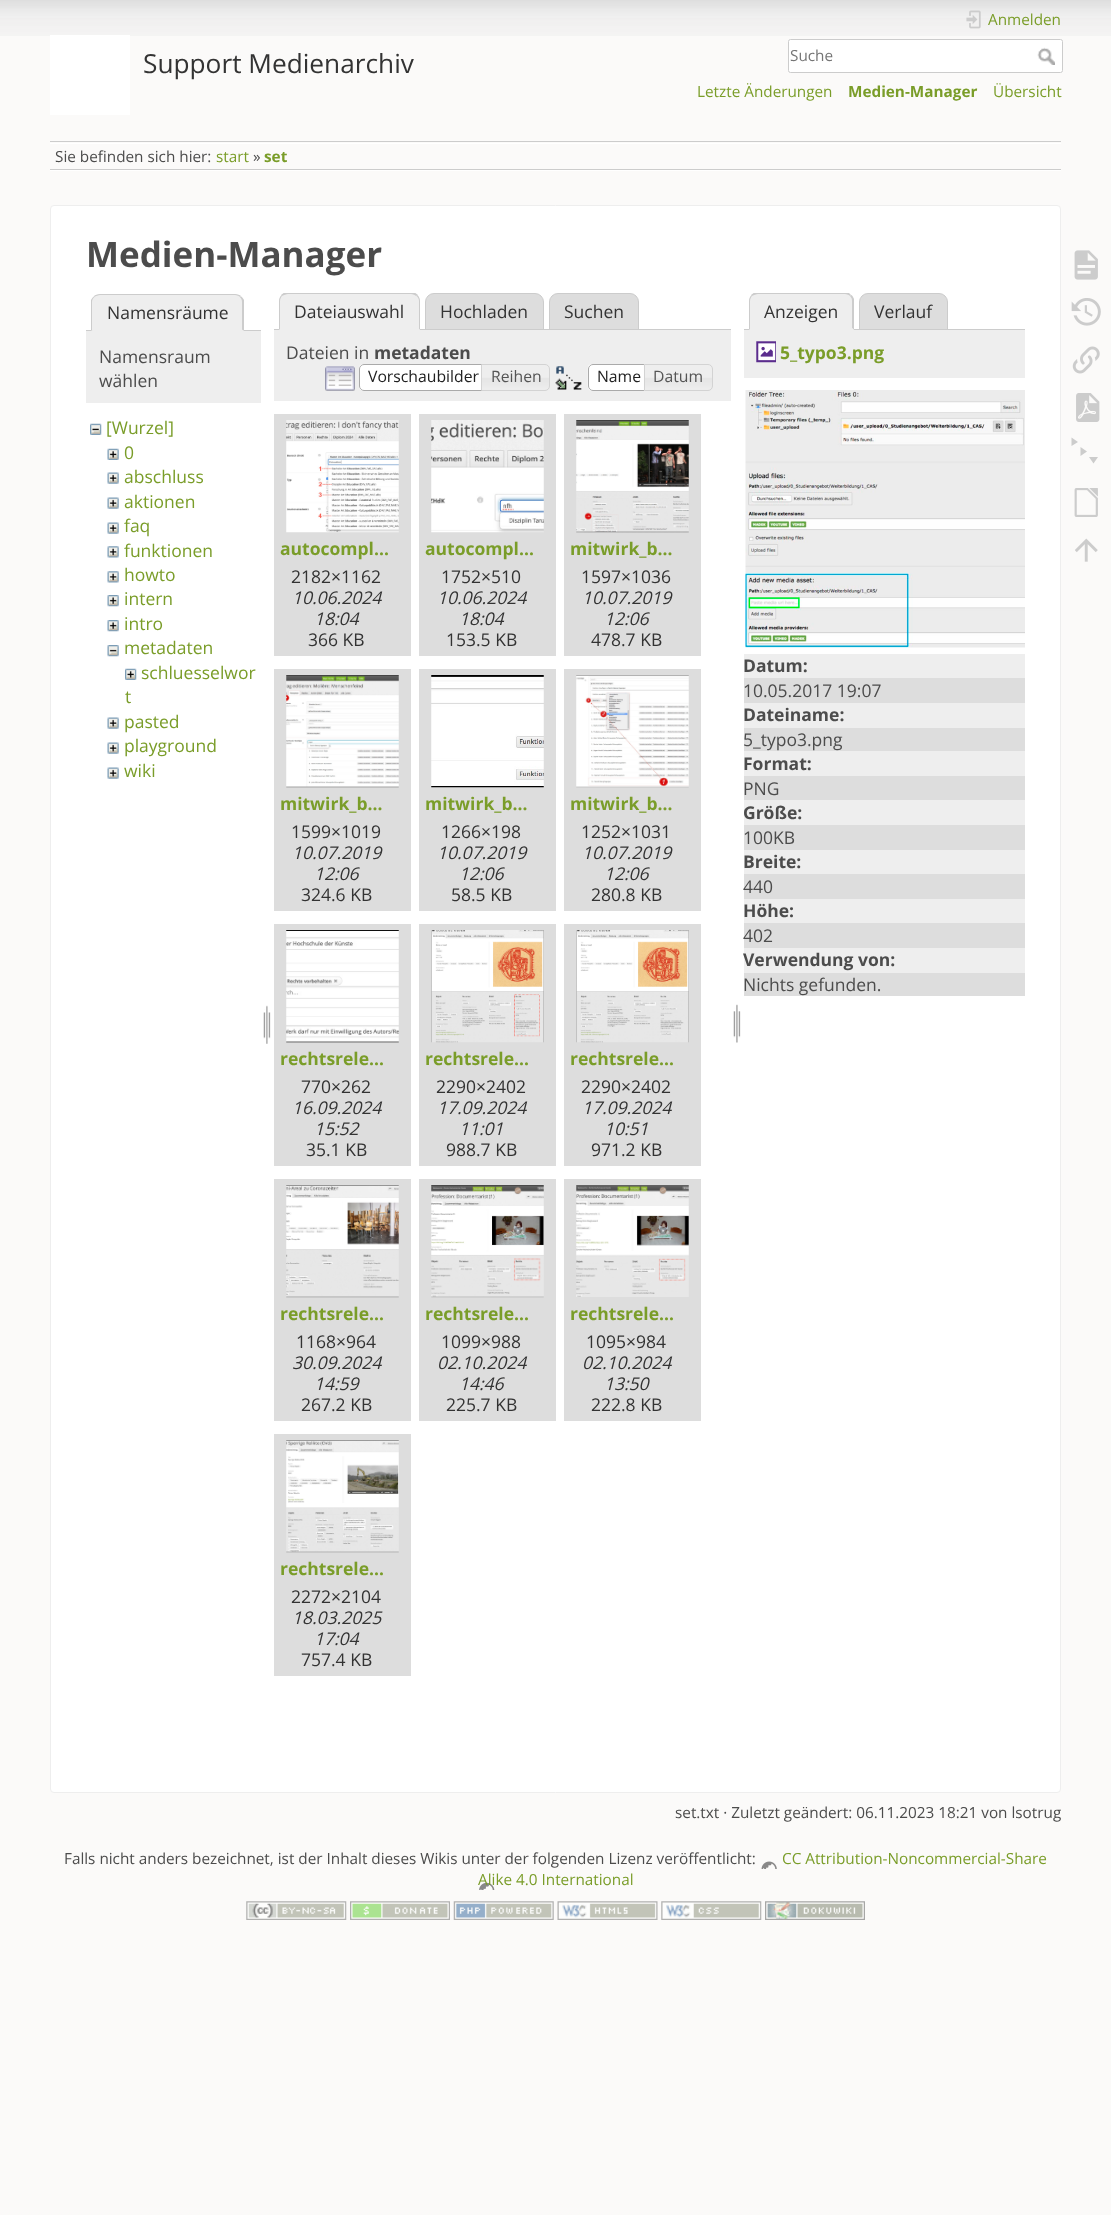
(async () => {
    const canvas = document.querySelector("canvas");
    canvas.width = 1111;
    canvas.height = 2215;
    const context = canvas.getContext("2d");
    context.miterLimit = 4;
    context.fontKerning = "normal";
    function write(s, x, y, font, color) {
        context.font = font;
        context.fillStyle = color;
        context.fillText(s, x, y);
    }
    function block(x, y, w, h, color) {
        context.fillStyle = color;
        context.fillRect(x, y, w, h);
    }
    async function photo(src, x, y, w, h) {
        const img = new Image();
        img.src = src;
        await img.decode();
        context.drawImage(img, x, y, w, h);
    }

    block(0, 0, 1111, 2215, "rgb(251, 250, 249)");
    await photo("media/1.png", 0, 0, 1111, 36);
    block(50, 35, 80, 80, "rgb(255, 255, 255)");
    write("Support Medienarchiv", 143, 73, "26.25px Open Sans", "rgb(51, 51, 51)");
    await photo("media/2.png", 966, 10, 15, 19);
    write("Anmelden", 988, 25, "15.3px Open Sans", "rgb(122, 157, 41)");
    context.fillStyle = "rgb(255, 255, 255)";
    context.beginPath();
    context.roundRect(788.5, 39.5, 274, 33, 2);
    context.fill();
    context.strokeStyle = "rgb(204, 204, 204)";
    context.stroke();
    write("Suche", 790, 61, "15.3px Open Sans", "rgb(117, 117, 117)");
    await photo("media/3.png", 1037, 47, 18, 18);
    write("Letzte Änderungen", 697, 97, "15.3px Open Sans", "rgb(122, 157, 41)");
    write("Medien-Manager", 848, 97, "bold 15.3px Open Sans", "rgb(122, 157, 41)");
    write("Übersicht", 993, 97, "15.3px Open Sans", "rgb(122, 157, 41)");
    block(50, 141, 1011, 1, "rgb(204, 204, 204)");
    block(50, 170, 1011, 1, "rgb(255, 255, 255)");
    block(50, 143, 1011, 1, "rgb(255, 255, 255)");
    block(50, 169, 1011, 1, "rgb(204, 204, 204)");
    write("Sie befinden sich hier:", 55, 162, "15.3px Open Sans", "rgb(76, 76, 76)");
    write("start", 216, 162, "15.3px Open Sans", "rgb(122, 157, 41)");
    write("»", 253, 162, "15.3px Open Sans", "rgb(76, 76, 76)");
    write("set", 264, 162, "bold 15.3px Open Sans", "rgb(122, 157, 41)");
    context.fillStyle = "rgb(255, 255, 255)";
    context.beginPath();
    context.roundRect(50.5, 205.5, 1010, 1587, 3.5);
    context.fill();
    context.strokeStyle = "rgb(238, 238, 238)";
    context.stroke();
    write("Medien-Manager", 86, 267, "bold 35px Open Sans", "rgb(76, 76, 76)");
    block(86, 330, 175, 1, "rgb(204, 204, 204)");
    context.fillStyle = "rgb(238, 238, 238)";
    context.beginPath();
    context.roundRect(91, 294, 153, 37, [9, 9, 0, 0]);
    context.fill();
    context.fillStyle = "rgb(204, 204, 204)";
    context.beginPath();
    context.moveTo(100, 294);
    context.bezierCurveTo(98, 294, 95, 295, 94, 296);
    context.lineTo(94, 297);
    context.bezierCurveTo(96, 296, 98, 295, 100, 295);
    context.lineTo(235, 295);
    context.bezierCurveTo(237, 295, 239, 296, 240, 297);
    context.lineTo(241, 296);
    context.bezierCurveTo(240, 295, 237, 294, 235, 294);
    context.closePath();
    context.fill();
    context.beginPath();
    context.moveTo(241, 296.5);
    context.bezierCurveTo(242.5, 297.5, 243.5, 299, 244, 300);
    context.lineTo(244, 331);
    context.lineTo(242, 329.5);
    context.lineTo(242, 302);
    context.bezierCurveTo(242, 300, 241.5, 298.5, 240, 297.5);
    context.closePath();
    context.fill();
    context.fillStyle = "rgb(238, 238, 238)";
    context.beginPath();
    context.moveTo(244, 331);
    context.lineTo(92, 331);
    context.lineTo(92, 330);
    context.lineTo(242, 330);
    context.closePath();
    context.fill();
    context.fillStyle = "rgb(204, 204, 204)";
    context.beginPath();
    context.moveTo(91, 300);
    context.bezierCurveTo(91.5, 299, 92.5, 297.5, 94, 296.5);
    context.lineTo(94.5, 297);
    context.bezierCurveTo(93, 298, 92, 300, 92, 302);
    context.lineTo(92, 330);
    context.lineTo(92.5, 330);
    context.lineTo(91, 331);
    context.closePath();
    context.fill();
    write("Namensräume", 107, 319, "17.5px Open Sans", "rgb(51, 51, 51)");
    block(86, 331, 175, 72, "rgb(238, 238, 238)");
    write("Namensraum", 99, 363, "17.5px Open Sans", "rgb(76, 76, 76)");
    write("wählen", 99, 387, "17.5px Open Sans", "rgb(76, 76, 76)");
    await photo("media/4.png", 90, 423, 12, 12);
    write("[Wurzel]", 106, 434, "17.5px Open Sans", "rgb(122, 157, 41)");
    await photo("media/5.png", 107, 448, 12, 12);
    write("0", 124, 459, "17.5px Open Sans", "rgb(122, 157, 41)");
    await photo("media/6.png", 107, 472, 12, 12);
    write("abschluss", 124, 483, "17.5px Open Sans", "rgb(122, 157, 41)");
    await photo("media/6.png", 107, 497, 12, 12);
    write("aktionen", 124, 508, "17.5px Open Sans", "rgb(122, 157, 41)");
    await photo("media/6.png", 107, 522, 12, 12);
    write("faq", 124, 532, "17.5px Open Sans", "rgb(122, 157, 41)");
    await photo("media/7.png", 107, 546, 12, 12);
    write("funktionen", 124, 557, "17.5px Open Sans", "rgb(122, 157, 41)");
    await photo("media/7.png", 107, 571, 12, 12);
    write("howto", 124, 581, "17.5px Open Sans", "rgb(122, 157, 41)");
    await photo("media/8.png", 107, 595, 12, 12);
    write("intern", 124, 605, "17.5px Open Sans", "rgb(122, 157, 41)");
    await photo("media/8.png", 107, 620, 12, 12);
    write("intro", 124, 630, "17.5px Open Sans", "rgb(122, 157, 41)");
    await photo("media/9.png", 107, 645, 12, 12);
    write("metadaten", 124, 654, "17.5px Open Sans", "rgb(122, 157, 41)");
    await photo("media/10.png", 125, 668, 12, 12);
    write("schluesselwor", 141, 679, "17.5px Open Sans", "rgb(122, 157, 41)");
    write("t", 125, 703, "17.5px Open Sans", "rgb(122, 157, 41)");
    await photo("media/6.png", 107, 717, 12, 12);
    write("pasted", 124, 728, "17.5px Open Sans", "rgb(122, 157, 41)");
    await photo("media/6.png", 107, 742, 12, 12);
    write("playground", 124, 752, "17.5px Open Sans", "rgb(122, 157, 41)");
    await photo("media/6.png", 107, 767, 12, 12);
    write("wiki", 124, 777, "17.5px Open Sans", "rgb(122, 157, 41)");
    await photo("media/11.png", 263, 1005, 8, 39);
    context.fillStyle = "rgb(221, 221, 221)";
    context.beginPath();
    context.roundRect(425.5, 293.5, 118, 36, [8.5, 8.5, 0, 0]);
    context.fill();
    context.strokeStyle = "rgb(204, 204, 204)";
    context.stroke();
    context.beginPath();
    context.roundRect(549.5, 293.5, 89, 36, [8.5, 8.5, 0, 0]);
    context.fill();
    context.stroke();
    block(274, 329, 457, 1, "rgb(204, 204, 204)");
    context.fillStyle = "rgb(238, 238, 238)";
    context.beginPath();
    context.roundRect(279, 293, 141, 37, [9, 9, 0, 0]);
    context.fill();
    context.save();
    context.beginPath();
    context.rect(274, 293, 457, 37);
    context.clip();
    context.fillStyle = "rgb(204, 204, 204)";
    context.beginPath();
    context.moveTo(288, 294);
    context.bezierCurveTo(286, 294, 284, 295, 282, 296);
    context.lineTo(281, 295);
    context.lineTo(285, 292);
    context.lineTo(414, 292);
    context.lineTo(418, 295);
    context.lineTo(416, 296);
    context.bezierCurveTo(415, 295, 413, 294, 411, 294);
    context.closePath();
    context.fill();
    context.restore();
    context.fillStyle = "rgb(204, 204, 204)";
    context.beginPath();
    context.moveTo(420, 330);
    context.lineTo(420, 301);
    context.bezierCurveTo(420, 298.5, 419, 296.5, 417.5, 295);
    context.lineTo(416.5, 296);
    context.bezierCurveTo(418, 297, 419, 299, 419, 301);
    context.lineTo(419, 329);
    context.closePath();
    context.fill();
    context.fillStyle = "rgb(238, 238, 238)";
    context.beginPath();
    context.moveTo(420, 330);
    context.lineTo(419, 329);
    context.lineTo(280, 329);
    context.lineTo(279, 330);
    context.closePath();
    context.fill();
    context.fillStyle = "rgb(204, 204, 204)";
    context.beginPath();
    context.moveTo(279, 330);
    context.lineTo(279, 301);
    context.bezierCurveTo(279, 298.5, 280, 296.5, 281.5, 295);
    context.lineTo(282, 296);
    context.bezierCurveTo(281, 297, 280, 299, 280, 301);
    context.lineTo(280, 329);
    context.closePath();
    context.fill();
    write("Dateiauswahl", 294, 318, "17.5px Open Sans", "rgb(51, 51, 51)");
    write("Hochladen", 440, 318, "17.5px Open Sans", "rgb(51, 51, 51)");
    write("Suchen", 564, 318, "17.5px Open Sans", "rgb(51, 51, 51)");
    block(274, 330, 457, 71, "rgb(238, 238, 238)");
    write("Dateien in", 286, 359, "17.5px Open Sans", "rgb(76, 76, 76)");
    write("metadaten", 374, 359, "bold 17.5px Open Sans", "rgb(76, 76, 76)");
    await photo("media/12.png", 325, 366, 30, 25);
    context.fillStyle = "rgb(255, 255, 255)";
    context.beginPath();
    context.roundRect(359, 364, 129, 27, [5, 0, 0, 5]);
    context.fill();
    await photo("media/13.png", 359, 364, 4, 27);
    context.beginPath();
    context.roundRect(359.5, 364.5, 128, 26, [4.5, 0, 0, 4.5]);
    context.strokeStyle = "rgb(170, 170, 170)";
    context.stroke();
    write("Vorschaubilder", 368, 382, "15.75px Open Sans", "rgb(33, 33, 33)");
    await photo("media/14.png", 482, 364, 68, 27);
    context.beginPath();
    context.roundRect(481.5, 364.5, 68, 26, [0, 4.5, 4.5, 0]);
    context.strokeStyle = "rgb(211, 211, 211)";
    context.stroke();
    write("Reihen", 491, 382, "15.75px Open Sans", "rgb(85, 85, 85)");
    await photo("media/15.png", 555, 366, 27, 24);
    context.fillStyle = "rgb(255, 255, 255)";
    context.beginPath();
    context.roundRect(588, 364, 62, 27, [5, 0, 0, 5]);
    context.fill();
    await photo("media/16.png", 587, 364, 5, 27);
    context.beginPath();
    context.roundRect(588.5, 364.5, 61, 26, [4.5, 0, 0, 4.5]);
    context.strokeStyle = "rgb(170, 170, 170)";
    context.stroke();
    write("Name", 597, 382, "15.75px Open Sans", "rgb(33, 33, 33)");
    await photo("media/17.png", 643, 364, 69, 27);
    context.beginPath();
    context.roundRect(644.5, 364.5, 68, 26, [0, 4.5, 4.5, 0]);
    context.strokeStyle = "rgb(211, 211, 211)";
    context.stroke();
    write("Datum", 653, 382, "15.75px Open Sans", "rgb(85, 85, 85)");
    block(274, 414, 137, 242, "rgb(221, 221, 221)");
    await photo("media/18.png", 286, 420, 113, 113);
    write("autocompl…", 280, 555, "bold 17.5px Open Sans", "rgb(122, 157, 41)");
    write("2182×1162", 291, 583, "17.5px Open Sans", "rgb(51, 51, 51)");
    write("10.06.2024", 292, 604, "italic 17.5px Open Sans", "rgb(51, 51, 51)");
    write("18:04", 314, 625, "italic 17.5px Open Sans", "rgb(51, 51, 51)");
    write("366 KB", 308, 646, "17.5px Open Sans", "rgb(51, 51, 51)");
    block(419, 414, 137, 242, "rgb(221, 221, 221)");
    await photo("media/19.png", 431, 420, 113, 113);
    write("autocompl…", 425, 555, "bold 17.5px Open Sans", "rgb(122, 157, 41)");
    write("1752×510", 441, 583, "17.5px Open Sans", "rgb(51, 51, 51)");
    write("10.06.2024", 437, 604, "italic 17.5px Open Sans", "rgb(51, 51, 51)");
    write("18:04", 459, 625, "italic 17.5px Open Sans", "rgb(51, 51, 51)");
    write("153.5 KB", 446, 646, "17.5px Open Sans", "rgb(51, 51, 51)");
    block(564, 414, 137, 242, "rgb(221, 221, 221)");
    await photo("media/20.png", 576, 420, 113, 113);
    write("mitwirk_b…", 570, 555, "bold 17.5px Open Sans", "rgb(122, 157, 41)");
    write("1597×1036", 581, 583, "17.5px Open Sans", "rgb(51, 51, 51)");
    write("10.07.2019", 582, 604, "italic 17.5px Open Sans", "rgb(51, 51, 51)");
    write("12:06", 604, 625, "italic 17.5px Open Sans", "rgb(51, 51, 51)");
    write("478.7 KB", 591, 646, "17.5px Open Sans", "rgb(51, 51, 51)");
    block(274, 669, 137, 242, "rgb(221, 221, 221)");
    await photo("media/21.png", 286, 675, 113, 113);
    write("mitwirk_b…", 280, 810, "bold 17.5px Open Sans", "rgb(122, 157, 41)");
    write("1599×1019", 291, 838, "17.5px Open Sans", "rgb(51, 51, 51)");
    write("10.07.2019", 292, 859, "italic 17.5px Open Sans", "rgb(51, 51, 51)");
    write("12:06", 314, 880, "italic 17.5px Open Sans", "rgb(51, 51, 51)");
    write("324.6 KB", 301, 901, "17.5px Open Sans", "rgb(51, 51, 51)");
    block(419, 669, 137, 242, "rgb(221, 221, 221)");
    await photo("media/22.png", 431, 675, 113, 113);
    write("mitwirk_b…", 425, 810, "bold 17.5px Open Sans", "rgb(122, 157, 41)");
    write("1266×198", 441, 838, "17.5px Open Sans", "rgb(51, 51, 51)");
    write("10.07.2019", 437, 859, "italic 17.5px Open Sans", "rgb(51, 51, 51)");
    write("12:06", 459, 880, "italic 17.5px Open Sans", "rgb(51, 51, 51)");
    write("58.5 KB", 451, 901, "17.5px Open Sans", "rgb(51, 51, 51)");
    block(564, 669, 137, 242, "rgb(221, 221, 221)");
    await photo("media/23.png", 576, 675, 113, 113);
    write("mitwirk_b…", 570, 810, "bold 17.5px Open Sans", "rgb(122, 157, 41)");
    write("1252×1031", 581, 838, "17.5px Open Sans", "rgb(51, 51, 51)");
    write("10.07.2019", 582, 859, "italic 17.5px Open Sans", "rgb(51, 51, 51)");
    write("12:06", 604, 880, "italic 17.5px Open Sans", "rgb(51, 51, 51)");
    write("280.8 KB", 591, 901, "17.5px Open Sans", "rgb(51, 51, 51)");
    block(274, 924, 137, 242, "rgb(221, 221, 221)");
    await photo("media/24.png", 286, 930, 113, 113);
    write("rechtsrele…", 280, 1065, "bold 17.5px Open Sans", "rgb(122, 157, 41)");
    write("770×262", 301, 1093, "17.5px Open Sans", "rgb(51, 51, 51)");
    write("16.09.2024", 292, 1114, "italic 17.5px Open Sans", "rgb(51, 51, 51)");
    write("15:52", 314, 1135, "italic 17.5px Open Sans", "rgb(51, 51, 51)");
    write("35.1 KB", 306, 1156, "17.5px Open Sans", "rgb(51, 51, 51)");
    block(419, 924, 137, 242, "rgb(221, 221, 221)");
    await photo("media/25.png", 431, 930, 113, 113);
    write("rechtsrele…", 425, 1065, "bold 17.5px Open Sans", "rgb(122, 157, 41)");
    write("2290×2402", 436, 1093, "17.5px Open Sans", "rgb(51, 51, 51)");
    write("17.09.2024", 437, 1114, "italic 17.5px Open Sans", "rgb(51, 51, 51)");
    write("11:01", 459, 1135, "italic 17.5px Open Sans", "rgb(51, 51, 51)");
    write("988.7 KB", 446, 1156, "17.5px Open Sans", "rgb(51, 51, 51)");
    block(564, 924, 137, 242, "rgb(221, 221, 221)");
    await photo("media/26.png", 576, 930, 113, 113);
    write("rechtsrele…", 570, 1065, "bold 17.5px Open Sans", "rgb(122, 157, 41)");
    write("2290×2402", 581, 1093, "17.5px Open Sans", "rgb(51, 51, 51)");
    write("17.09.2024", 582, 1114, "italic 17.5px Open Sans", "rgb(51, 51, 51)");
    write("10:51", 604, 1135, "italic 17.5px Open Sans", "rgb(51, 51, 51)");
    write("971.2 KB", 591, 1156, "17.5px Open Sans", "rgb(51, 51, 51)");
    block(274, 1179, 137, 242, "rgb(221, 221, 221)");
    await photo("media/27.png", 286, 1185, 113, 113);
    write("rechtsrele…", 280, 1320, "bold 17.5px Open Sans", "rgb(122, 157, 41)");
    write("1168×964", 296, 1348, "17.5px Open Sans", "rgb(51, 51, 51)");
    write("30.09.2024", 292, 1369, "italic 17.5px Open Sans", "rgb(51, 51, 51)");
    write("14:59", 314, 1390, "italic 17.5px Open Sans", "rgb(51, 51, 51)");
    write("267.2 KB", 301, 1411, "17.5px Open Sans", "rgb(51, 51, 51)");
    block(419, 1179, 137, 242, "rgb(221, 221, 221)");
    await photo("media/28.png", 431, 1185, 113, 113);
    write("rechtsrele…", 425, 1320, "bold 17.5px Open Sans", "rgb(122, 157, 41)");
    write("1099×988", 441, 1348, "17.5px Open Sans", "rgb(51, 51, 51)");
    write("02.10.2024", 437, 1369, "italic 17.5px Open Sans", "rgb(51, 51, 51)");
    write("14:46", 459, 1390, "italic 17.5px Open Sans", "rgb(51, 51, 51)");
    write("225.7 KB", 446, 1411, "17.5px Open Sans", "rgb(51, 51, 51)");
    block(564, 1179, 137, 242, "rgb(221, 221, 221)");
    await photo("media/29.png", 576, 1185, 113, 112);
    write("rechtsrele…", 570, 1320, "bold 17.5px Open Sans", "rgb(122, 157, 41)");
    write("1095×984", 586, 1348, "17.5px Open Sans", "rgb(51, 51, 51)");
    write("02.10.2024", 582, 1369, "italic 17.5px Open Sans", "rgb(51, 51, 51)");
    write("13:50", 604, 1390, "italic 17.5px Open Sans", "rgb(51, 51, 51)");
    write("222.8 KB", 591, 1411, "17.5px Open Sans", "rgb(51, 51, 51)");
    block(274, 1434, 137, 242, "rgb(221, 221, 221)");
    await photo("media/30.png", 286, 1440, 113, 113);
    write("rechtsrele…", 280, 1575, "bold 17.5px Open Sans", "rgb(122, 157, 41)");
    write("2272×2104", 291, 1603, "17.5px Open Sans", "rgb(51, 51, 51)");
    write("18.03.2025", 292, 1624, "italic 17.5px Open Sans", "rgb(51, 51, 51)");
    write("17:04", 314, 1645, "italic 17.5px Open Sans", "rgb(51, 51, 51)");
    write("757.4 KB", 301, 1666, "17.5px Open Sans", "rgb(51, 51, 51)");
    await photo("media/31.png", 733, 1004, 8, 39);
    context.fillStyle = "rgb(221, 221, 221)";
    context.beginPath();
    context.roundRect(859.5, 293.5, 88, 36, [8.5, 8.5, 0, 0]);
    context.fill();
    context.strokeStyle = "rgb(204, 204, 204)";
    context.stroke();
    block(744, 329, 281, 1, "rgb(204, 204, 204)");
    context.fillStyle = "rgb(238, 238, 238)";
    context.beginPath();
    context.roundRect(749, 293, 105, 37, [9, 9, 0, 0]);
    context.fill();
    context.save();
    context.beginPath();
    context.rect(744, 293, 281, 37);
    context.clip();
    context.fillStyle = "rgb(204, 204, 204)";
    context.beginPath();
    context.moveTo(758, 294);
    context.bezierCurveTo(756, 294, 754, 295, 752, 296);
    context.lineTo(751, 295);
    context.lineTo(755, 292);
    context.lineTo(848, 292);
    context.lineTo(851, 295);
    context.lineTo(850, 296);
    context.bezierCurveTo(849, 295, 847, 294, 845, 294);
    context.closePath();
    context.fill();
    context.restore();
    context.fillStyle = "rgb(204, 204, 204)";
    context.beginPath();
    context.moveTo(854, 299);
    context.lineTo(854, 330);
    context.lineTo(852, 328);
    context.lineTo(852, 301);
    context.bezierCurveTo(852, 299, 851.5, 297.5, 850, 296);
    context.lineTo(851.5, 295);
    context.bezierCurveTo(852.5, 296, 853.5, 297.5, 854, 299);
    context.closePath();
    context.fill();
    context.fillStyle = "rgb(238, 238, 238)";
    context.beginPath();
    context.moveTo(854, 330);
    context.lineTo(852, 328);
    context.lineTo(852, 329);
    context.lineTo(750, 329);
    context.lineTo(749, 330);
    context.closePath();
    context.fill();
    context.fillStyle = "rgb(204, 204, 204)";
    context.beginPath();
    context.moveTo(749, 330);
    context.lineTo(749, 301);
    context.bezierCurveTo(749, 298.5, 750, 296.5, 751.5, 295);
    context.lineTo(752, 296);
    context.bezierCurveTo(751, 297, 750, 299, 750, 301);
    context.lineTo(750, 329);
    context.closePath();
    context.fill();
    write("Anzeigen", 764, 318, "17.5px Open Sans", "rgb(51, 51, 51)");
    write("Verlauf", 874, 318, "17.5px Open Sans", "rgb(51, 51, 51)");
    block(744, 330, 281, 48, "rgb(238, 238, 238)");
    await photo("media/32.png", 756, 341, 20, 22);
    write("5_typo3.png", 780, 359, "bold 17.5px Open Sans", "rgb(122, 157, 41)");
    await photo("media/33.png", 745, 390, 280, 258);
    block(744, 654, 281, 24, "rgb(238, 238, 238)");
    write("Datum:", 743, 672, "bold 17.5px Open Sans", "rgb(76, 76, 76)");
    block(744, 678, 281, 25, "rgb(221, 221, 221)");
    write("10.05.2017 19:07", 743, 697, "17.5px Open Sans", "rgb(76, 76, 76)");
    block(744, 703, 281, 25, "rgb(238, 238, 238)");
    write("Dateiname:", 743, 721, "bold 17.5px Open Sans", "rgb(76, 76, 76)");
    block(744, 728, 281, 23, "rgb(221, 221, 221)");
    write("5_typo3.png", 743, 746, "17.5px Open Sans", "rgb(76, 76, 76)");
    block(744, 751, 281, 25, "rgb(238, 238, 238)");
    write("Format:", 743, 770, "bold 17.5px Open Sans", "rgb(76, 76, 76)");
    block(744, 776, 281, 24, "rgb(221, 221, 221)");
    write("PNG", 743, 795, "17.5px Open Sans", "rgb(76, 76, 76)");
    block(744, 800, 281, 25, "rgb(238, 238, 238)");
    write("Größe:", 743, 819, "bold 17.5px Open Sans", "rgb(76, 76, 76)");
    block(744, 825, 281, 25, "rgb(221, 221, 221)");
    write("100KB", 743, 844, "17.5px Open Sans", "rgb(76, 76, 76)");
    block(744, 850, 281, 24, "rgb(238, 238, 238)");
    write("Breite:", 743, 868, "bold 17.5px Open Sans", "rgb(76, 76, 76)");
    block(744, 874, 281, 25, "rgb(221, 221, 221)");
    write("440", 743, 893, "17.5px Open Sans", "rgb(76, 76, 76)");
    block(744, 899, 281, 24, "rgb(238, 238, 238)");
    write("Höhe:", 743, 917, "bold 17.5px Open Sans", "rgb(76, 76, 76)");
    block(744, 923, 281, 25, "rgb(221, 221, 221)");
    write("402", 743, 942, "17.5px Open Sans", "rgb(76, 76, 76)");
    block(744, 948, 281, 25, "rgb(238, 238, 238)");
    write("Verwendung von:", 743, 966, "bold 17.5px Open Sans", "rgb(76, 76, 76)");
    block(744, 973, 281, 23, "rgb(221, 221, 221)");
    write("Nichts gefunden.", 743, 991, "17.5px Open Sans", "rgb(76, 76, 76)");
    write("set.txt · Zuletzt geändert: 06.11.2023 18:21 von lsotrug", 675, 1818, "15.3px Open Sans", "rgb(76, 76, 76)");
    await photo("media/34.png", 1074, 250, 24, 30);
    await photo("media/35.png", 1071, 298, 30, 28);
    await photo("media/36.png", 1072, 346, 28, 28);
    await photo("media/37.png", 1076, 393, 24, 29);
    context.fillStyle = "rgb(204, 204, 204)";
    context.beginPath();
    context.moveTo(1071.5, 437.5);
    context.lineTo(1078, 442);
    context.lineTo(1071.5, 446);
    context.closePath();
    context.moveTo(1080.5, 447);
    context.lineTo(1087, 451.5);
    context.lineTo(1080.5, 456);
    context.closePath();
    context.moveTo(1089, 457);
    context.lineTo(1098, 457);
    context.lineTo(1093.5, 463.5);
    context.closePath();
    context.fill();
    await photo("media/38.png", 1074, 488, 24, 29);
    await photo("media/39.png", 1075, 538, 23, 24);
    write("Falls nicht anders bezeichnet, ist der Inhalt dieses Wikis unter der folgenden Lizenz veröffentlicht:", 64, 1864, "15.3px Open Sans", "rgb(76, 76, 76)");
    write("CC Attribution-Noncommercial-Share", 782, 1864, "15.3px Open Sans", "rgb(122, 157, 41)");
    await photo("media/40.png", 479, 1861, 298, 29);
    write("Alike 4.0 International", 478, 1885, "15.3px Open Sans", "rgb(122, 157, 41)");
    await photo("media/41.png", 246, 1901, 101, 19);
    await photo("media/42.png", 350, 1901, 100, 19);
    await photo("media/43.png", 453, 1901, 101, 19);
    await photo("media/44.png", 557, 1901, 101, 19);
    await photo("media/45.png", 661, 1901, 101, 19);
    await photo("media/46.png", 765, 1901, 100, 19);
})();
